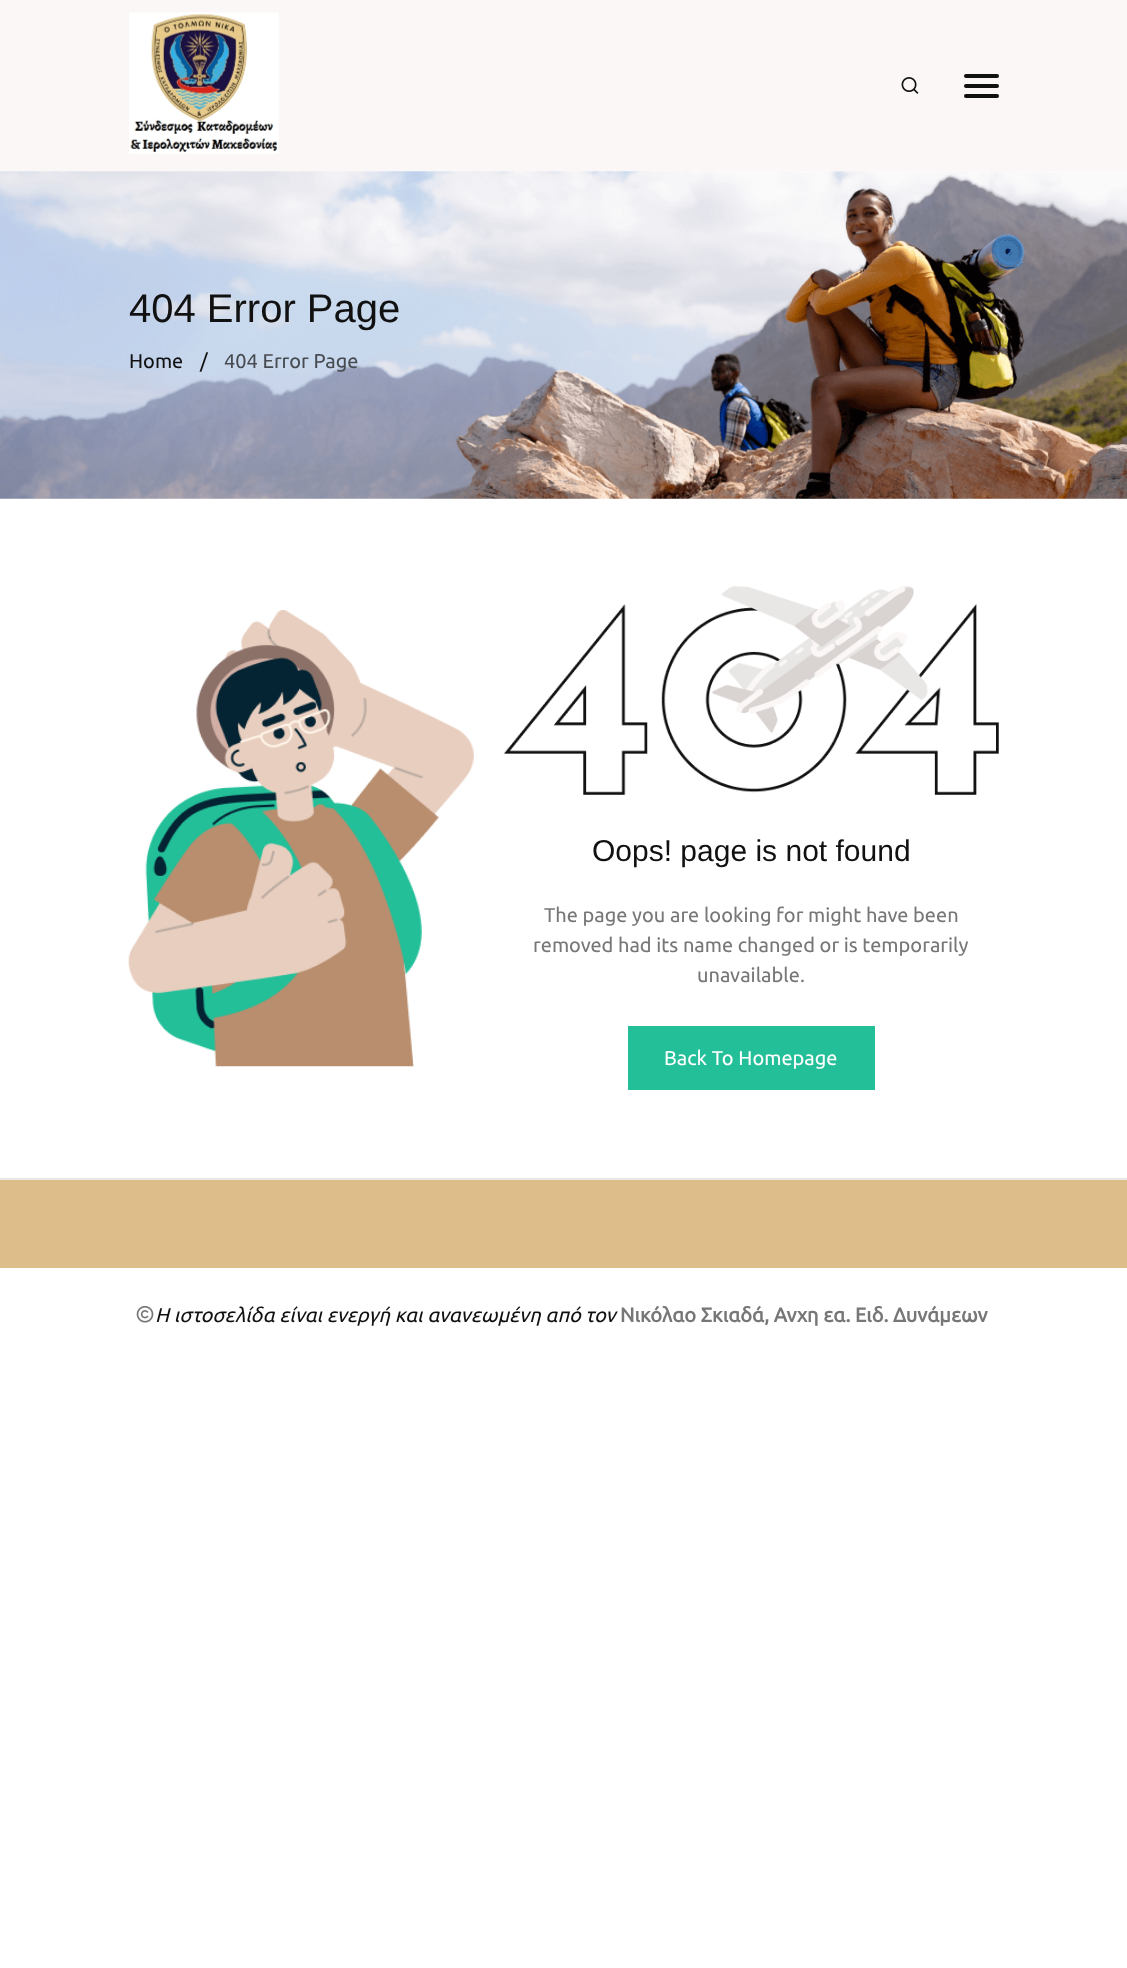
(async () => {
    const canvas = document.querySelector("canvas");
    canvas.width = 1127;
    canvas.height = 1968;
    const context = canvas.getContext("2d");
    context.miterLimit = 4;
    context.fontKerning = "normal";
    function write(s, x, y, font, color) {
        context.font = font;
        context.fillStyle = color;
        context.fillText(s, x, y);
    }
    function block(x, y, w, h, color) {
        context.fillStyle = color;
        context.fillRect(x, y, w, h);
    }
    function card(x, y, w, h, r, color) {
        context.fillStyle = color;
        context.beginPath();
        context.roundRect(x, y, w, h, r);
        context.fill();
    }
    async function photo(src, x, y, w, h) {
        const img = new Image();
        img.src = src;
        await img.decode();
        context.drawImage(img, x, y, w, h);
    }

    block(0, 0, 1127, 1968, "rgb(255, 255, 255)");
    block(0, 0, 1127, 171, "rgb(250, 247, 246)");
    await photo("media/1.png", 129, 12, 150, 142);
    await photo("media/2.png", 901, 77, 18, 17);
    card(964, 74, 35, 4, 2, "rgb(17, 17, 17)");
    card(964, 84, 35, 4, 2, "rgb(17, 17, 17)");
    card(964, 94, 35, 4, 2, "rgb(17, 17, 17)");
    await photo("media/3.png", 0, 171, 1127, 328);
    write("404 Error Page", 129, 322, "40px Liberation Sans", "rgb(17, 17, 17)");
    write("Home", 129, 368, "20px Ubuntu", "rgb(17, 17, 17)");
    write("/", 200, 368, "20px Ubuntu", "rgb(17, 17, 17)");
    write("404 Error Page", 224, 368, "20px Ubuntu", "rgb(71, 76, 82)");
    block(0, 1178, 1127, 1, "rgb(230, 230, 230)");
    await photo("media/4.png", 128, 610, 346, 457);
    await photo("media/5.png", 503, 586, 496, 209);
    write("Oops! page is not found", 592, 861, "30px Liberation Sans", "rgb(17, 17, 17)");
    write("The page you are looking for might have been", 544, 922, "20px Ubuntu", "rgb(119, 119, 119)");
    write("removed had its name changed or is temporarily", 533, 952, "20px Ubuntu", "rgb(119, 119, 119)");
    write("unavailable.", 697, 982, "20px Ubuntu", "rgb(119, 119, 119)");
    block(628, 1026, 247, 64, "rgb(34, 191, 152)");
    write("Back To Homepage", 664, 1065, "20px Ubuntu", "rgb(255, 255, 255)");
    block(0, 1180, 1127, 88, "rgb(221, 190, 139)");
    block(0, 1179, 1127, 1, "rgb(235, 235, 235)");
    await photo("media/6.png", 136, 1305, 18, 18);
    write("Η ιστοσελίδα είναι ενεργή και ανανεωμένη από τον", 155, 1322, "italic 20px Ubuntu", "rgb(17, 17, 17)");
    write("Νικόλαο Σκιαδά, Ανχη εα. Ειδ. Δυνάμεων", 620, 1322, "bold 20px Ubuntu", "rgb(119, 119, 119)");
})();
